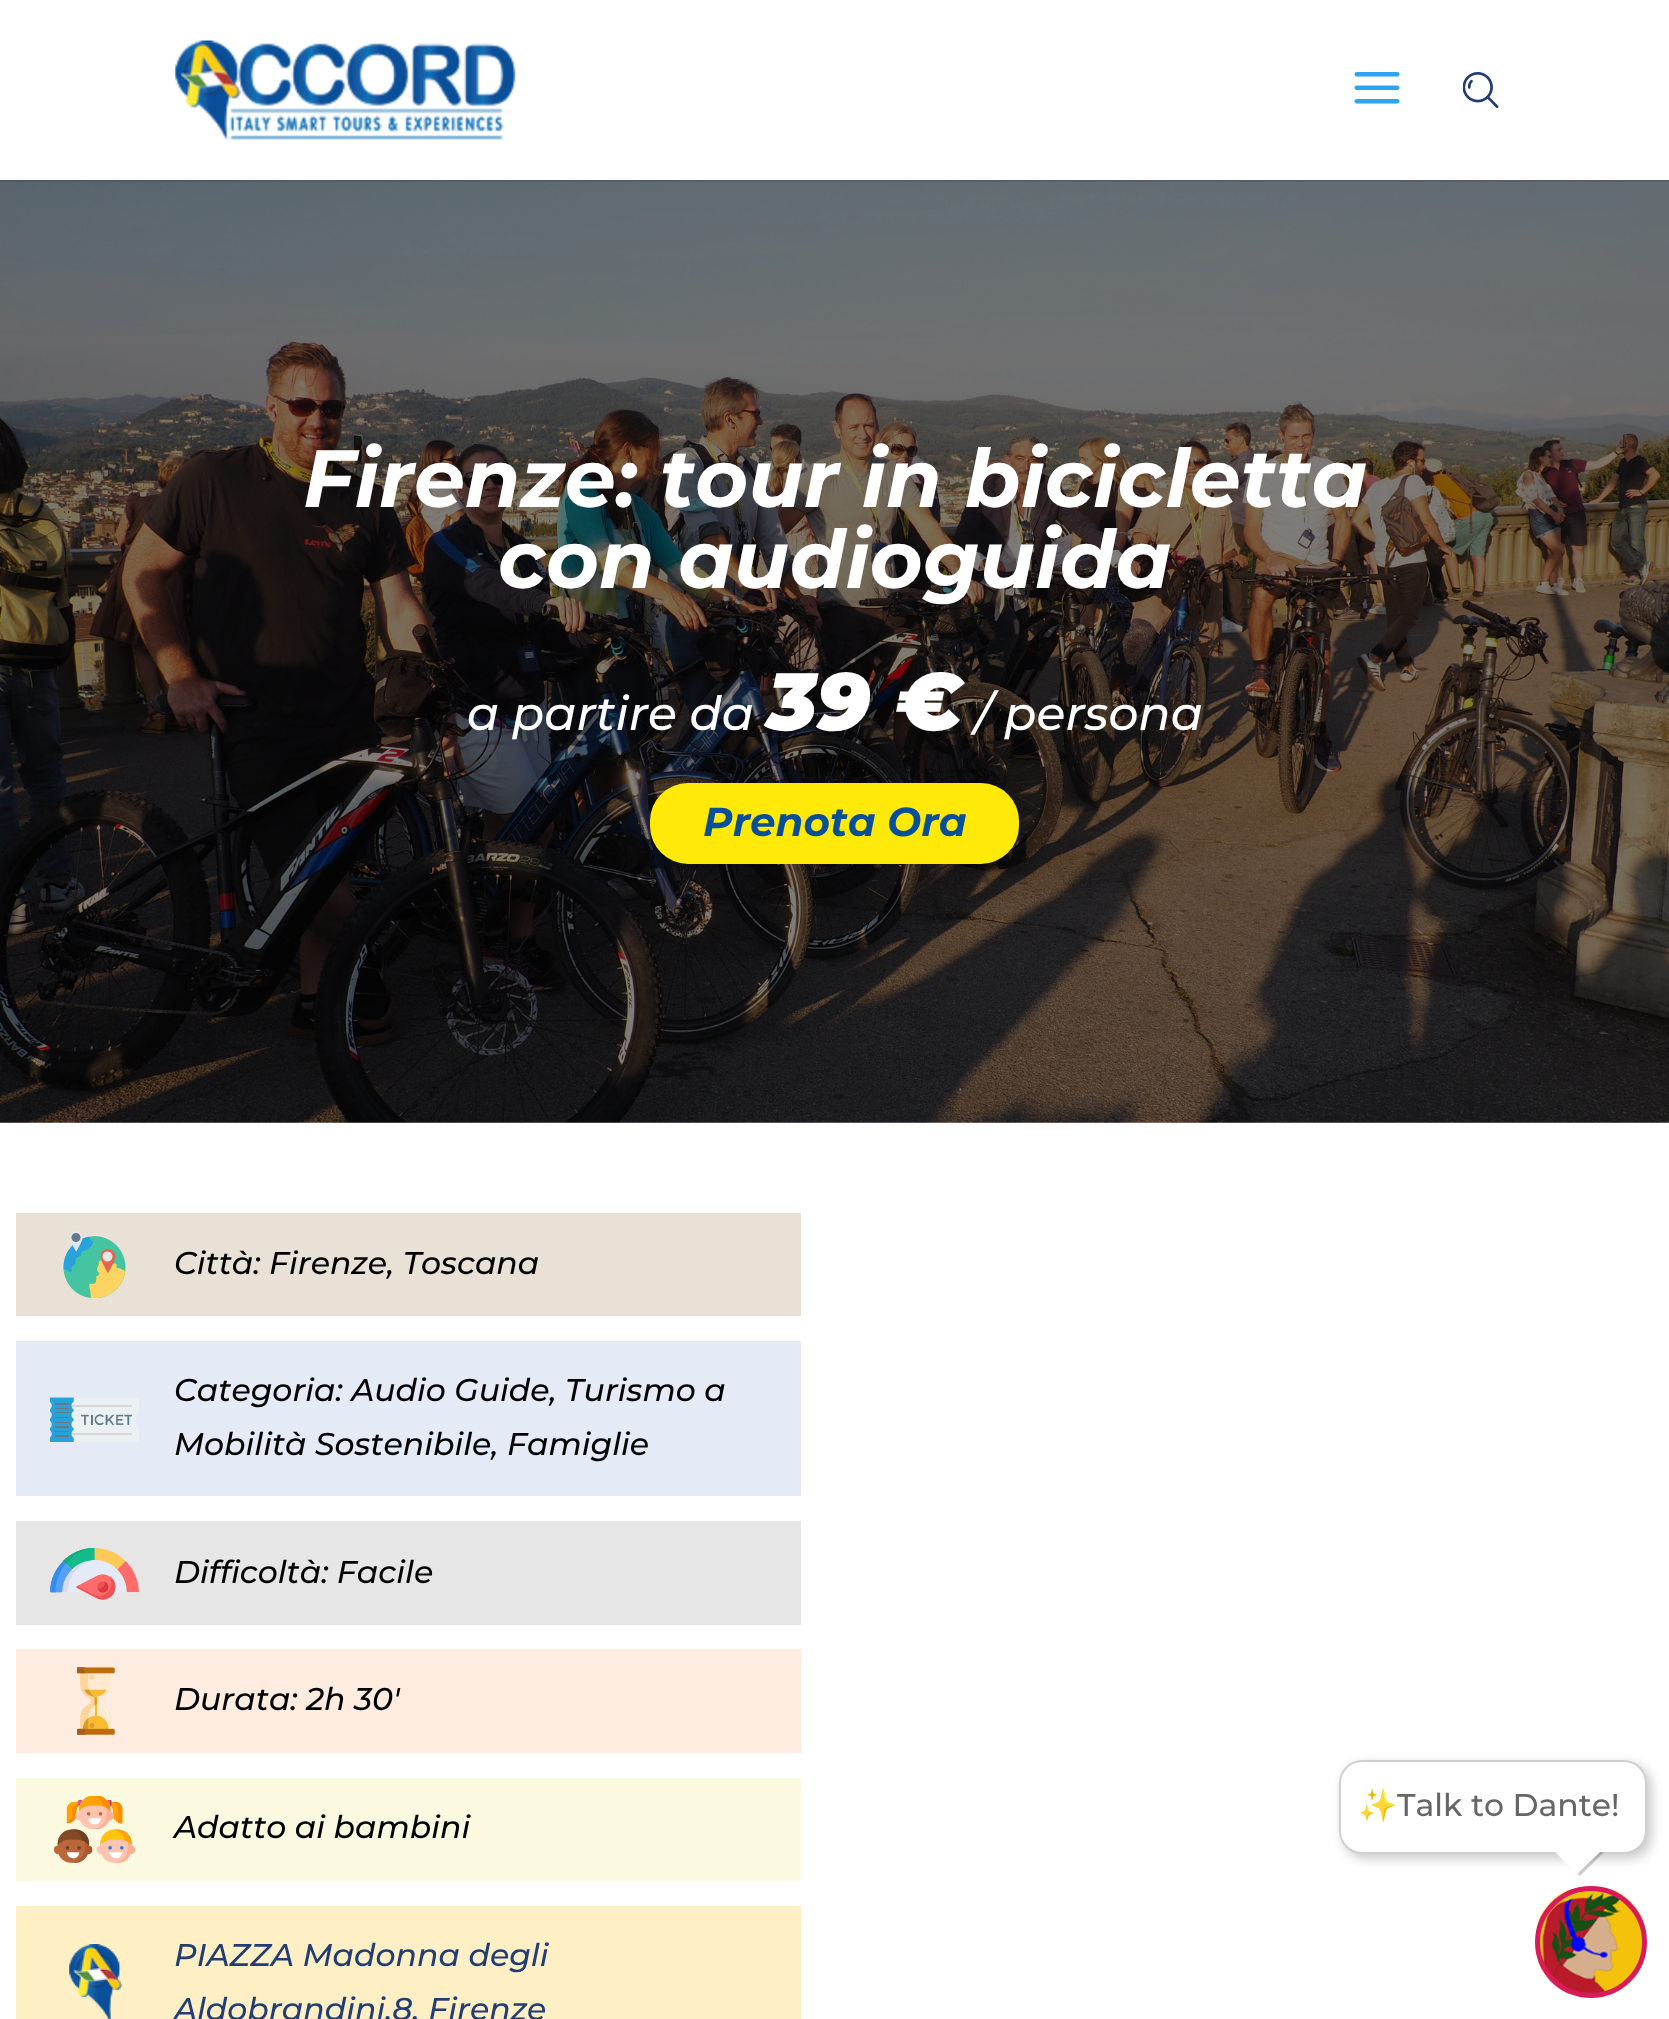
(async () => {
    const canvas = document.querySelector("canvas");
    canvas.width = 1669;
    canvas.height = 2019;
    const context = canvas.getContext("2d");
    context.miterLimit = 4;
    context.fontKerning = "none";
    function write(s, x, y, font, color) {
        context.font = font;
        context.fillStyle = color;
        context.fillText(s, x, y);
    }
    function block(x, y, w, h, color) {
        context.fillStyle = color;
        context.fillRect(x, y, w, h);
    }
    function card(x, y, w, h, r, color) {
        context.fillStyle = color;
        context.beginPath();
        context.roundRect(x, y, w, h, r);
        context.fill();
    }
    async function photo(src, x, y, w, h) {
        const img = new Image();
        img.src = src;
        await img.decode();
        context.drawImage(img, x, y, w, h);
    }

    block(0, 0, 1669, 2019, "rgb(255, 255, 255)");
    await photo("media/4.png", 0, 180, 1669, 943);
    context.fillStyle = "rgba(0, 0, 0, 0.1)";
    context.beginPath();
    context.moveTo(0, 180);
    context.lineTo(0, 182);
    context.lineTo(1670, 182);
    context.lineTo(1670, 2);
    context.lineTo(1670, 180);
    context.closePath();
    context.fill();
    await photo("media/1.png", 175, 40, 341, 100);
    await photo("media/2.png", 1354, 72, 46, 32);
    await photo("media/3.png", 1463, 72, 36, 36);
    write("Firenze: tour in bicicletta", 303, 507, "italic bold 81px Montserrat", "rgb(255, 255, 255)");
    write("con audioguida", 498, 588, "italic bold 81px Montserrat", "rgb(255, 255, 255)");
    write("a partire da", 467, 730, "italic 500 47.25px Montserrat", "rgb(255, 255, 255)");
    write("39 €", 767, 730, "italic 900 81px Montserrat", "rgb(255, 255, 255)");
    write("/ persona", 975, 730, "italic 500 47.25px Montserrat", "rgb(255, 255, 255)");
    card(650, 783, 369, 81, 38, "rgb(255, 233, 9)");
    write("Prenota Ora", 703, 836, "italic bold 40.5px Montserrat", "rgb(7, 79, 153)");
    block(16, 1213, 785, 103, "rgb(233, 224, 214)");
    await photo("media/5.png", 63, 1231, 63, 67);
    write("Città: Firenze, Toscana", 174, 1274, "italic 500 31.5px Montserrat", "rgb(0, 0, 0)");
    block(16, 1341, 785, 155, "rgb(228, 234, 246)");
    write("Categoria: Audio Guide, Turismo a", 174, 1401, "italic 500 31.5px Montserrat", "rgb(0, 0, 0)");
    await photo("media/6.png", 50, 1397, 89, 45);
    write("Mobilità Sostenibile, Famiglie", 174, 1455, "italic 500 31.5px Montserrat", "rgb(0, 0, 0)");
    block(16, 1521, 785, 104, "rgb(230, 230, 230)");
    await photo("media/7.png", 50, 1548, 89, 52);
    write("Difficoltà: Facile", 174, 1583, "italic 500 31.5px Montserrat", "rgb(0, 0, 0)");
    block(16, 1649, 785, 104, "rgb(253, 236, 223)");
    await photo("media/8.png", 77, 1667, 38, 68);
    write("Durata: 2h 30'", 174, 1710, "italic 500 31.5px Montserrat", "rgb(0, 0, 0)");
    block(16, 1778, 785, 103, "rgb(252, 249, 225)");
    await photo("media/9.png", 54, 1796, 81, 67);
    write("Adatto ai bambini", 174, 1838, "italic 500 31.5px Montserrat", "rgb(0, 0, 0)");
    block(16, 1906, 785, 113, "rgb(255, 239, 196)");
    await photo("media/10.png", 69, 1944, 54, 75);
    write("PIAZZA Madonna degli", 174, 1966, "italic 500 31.5px Montserrat", "rgb(32, 61, 118)");
    write("Aldobrandini,8, Firenze", 174, 2020, "italic 500 31.5px Montserrat", "rgb(32, 61, 118)");
    context.fillStyle = "rgba(0, 0, 0, 0.2)";
    context.filter = "blur(5.5px)";
    context.beginPath();
    context.roundRect(1343, 1764, 309, 95, 23);
    context.fill();
    context.filter = "none";
    context.fillStyle = "rgb(255, 255, 255)";
    context.beginPath();
    context.roundRect(1340, 1761, 306, 92, 22);
    context.fill();
    context.strokeStyle = "rgb(208, 208, 208)";
    context.lineWidth = 2;
    context.stroke();
    write("✨", 1358, 1816, "31.5px Noto Color Emoji", "rgb(102, 102, 102)");
    write("Talk to Dante!", 1397, 1816, "500 31.5px Montserrat", "rgb(102, 102, 102)");
    context.fillStyle = "rgba(0, 0, 0, 0.2)";
    context.beginPath();
    context.moveTo(1555, 1852);
    context.lineTo(1604, 1852);
    context.lineTo(1580, 1876);
    context.closePath();
    context.fill();
    context.fillStyle = "rgb(255, 255, 255)";
    context.beginPath();
    context.moveTo(1555, 1852);
    context.lineTo(1600, 1852);
    context.lineTo(1577, 1874);
    context.closePath();
    context.fill();
    await photo("media/11.png", 1538, 1889, 105, 105);
    context.beginPath();
    context.arc(1591, 1942, 53.5, 0, Math.PI * 2);
    context.strokeStyle = "rgb(217, 27, 92)";
    context.lineWidth = 5;
    context.stroke();
})();
